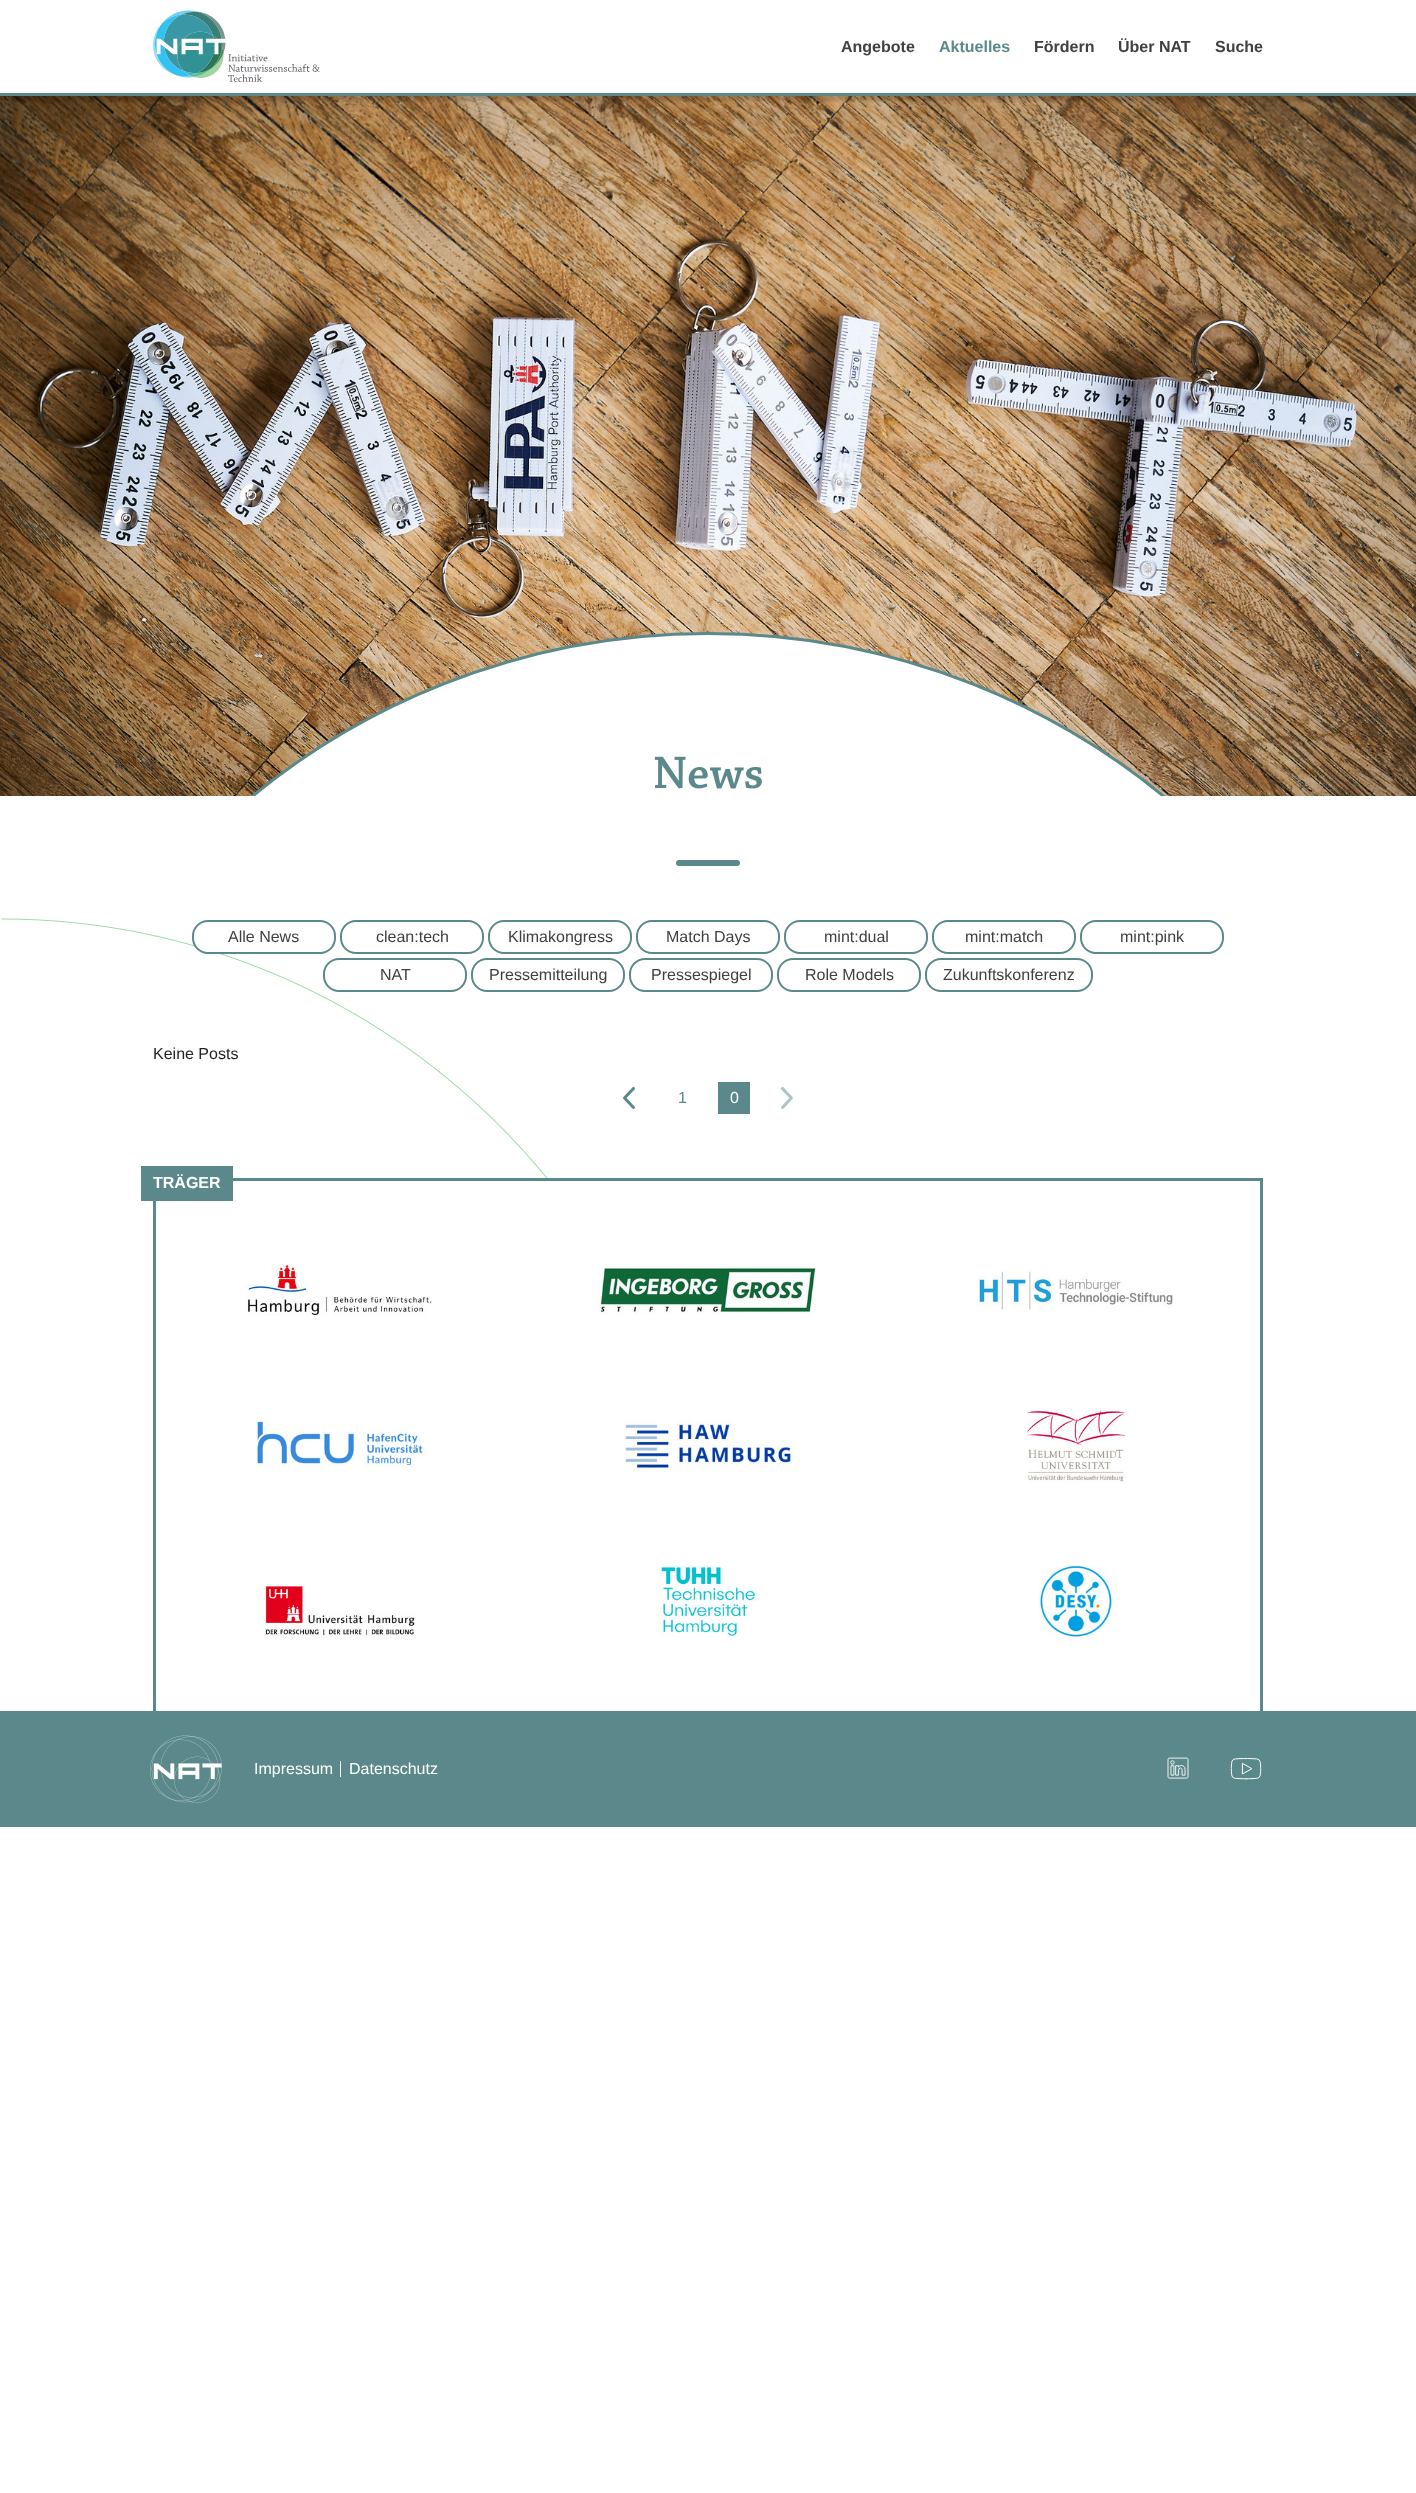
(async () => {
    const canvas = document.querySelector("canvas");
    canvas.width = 1416;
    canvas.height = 2493;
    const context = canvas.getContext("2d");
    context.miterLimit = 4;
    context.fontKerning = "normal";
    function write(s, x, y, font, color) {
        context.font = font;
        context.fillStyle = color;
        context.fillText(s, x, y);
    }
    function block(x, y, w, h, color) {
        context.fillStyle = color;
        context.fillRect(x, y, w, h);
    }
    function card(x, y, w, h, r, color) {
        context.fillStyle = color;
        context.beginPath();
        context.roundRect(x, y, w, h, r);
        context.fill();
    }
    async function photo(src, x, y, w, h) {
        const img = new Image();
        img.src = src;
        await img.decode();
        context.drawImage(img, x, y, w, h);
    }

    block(0, 0, 1416, 2493, "rgb(255, 255, 255)");
    await photo("media/2.png", 0, 96, 1416, 700);
    context.save();
    context.beginPath();
    context.rect(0, 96, 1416, 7);
    context.clip();
    context.fillStyle = "rgba(0, 0, 0, 0.15)";
    context.filter = "blur(1.5px)";
    context.beginPath();
    context.rect(2, 5, 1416, 96);
    context.fill();
    context.filter = "none";
    context.restore();
    block(0, 93, 1416, 3, "rgb(91, 137, 139)");
    await photo("media/1.png", 153, 10, 167, 72);
    write("Angebote", 841, 52, "bold 16px Liberation Sans", "rgb(64, 64, 64)");
    write("Aktuelles", 939, 52, "bold 16px Liberation Sans", "rgb(91, 137, 139)");
    write("Fördern", 1034, 52, "bold 16px Liberation Sans", "rgb(64, 64, 64)");
    write("Über NAT", 1118, 52, "bold 16px Liberation Sans", "rgb(64, 64, 64)");
    write("Suche", 1215, 52, "bold 16px Liberation Sans", "rgb(64, 64, 64)");
    await photo("media/4.png", 1, 918, 547, 260);
    context.fillStyle = "rgb(255, 255, 255)";
    context.beginPath();
    context.roundRect(193, 921, 142, 32, 15);
    context.fill();
    context.strokeStyle = "rgb(91, 137, 139)";
    context.lineWidth = 2;
    context.stroke();
    write("Alle News", 228, 942, "16px Liberation Sans", "rgb(64, 64, 64)");
    context.beginPath();
    context.roundRect(341, 921, 142, 32, 15);
    context.stroke();
    write("clean:tech", 376, 942, "16px Liberation Sans", "rgb(64, 64, 64)");
    context.beginPath();
    context.roundRect(489, 921, 142, 32, 15);
    context.stroke();
    write("Klimakongress", 508, 942, "16px Liberation Sans", "rgb(64, 64, 64)");
    context.beginPath();
    context.roundRect(637, 921, 142, 32, 15);
    context.stroke();
    write("Match Days", 666, 942, "16px Liberation Sans", "rgb(64, 64, 64)");
    context.beginPath();
    context.roundRect(785, 921, 142, 32, 15);
    context.stroke();
    write("mint:dual", 824, 942, "16px Liberation Sans", "rgb(64, 64, 64)");
    context.beginPath();
    context.roundRect(933, 921, 142, 32, 15);
    context.stroke();
    write("mint:match", 965, 942, "16px Liberation Sans", "rgb(64, 64, 64)");
    context.beginPath();
    context.roundRect(1081, 921, 142, 32, 15);
    context.stroke();
    write("mint:pink", 1120, 942, "16px Liberation Sans", "rgb(64, 64, 64)");
    context.beginPath();
    context.roundRect(324, 959, 142, 32, 15);
    context.stroke();
    write("NAT", 380, 980, "16px Liberation Sans", "rgb(64, 64, 64)");
    context.beginPath();
    context.roundRect(472, 959, 152, 32, 15);
    context.stroke();
    write("Pressemitteilung", 489, 980, "16px Liberation Sans", "rgb(64, 64, 64)");
    context.beginPath();
    context.roundRect(630, 959, 142, 32, 15);
    context.stroke();
    write("Pressespiegel", 651, 980, "16px Liberation Sans", "rgb(64, 64, 64)");
    context.beginPath();
    context.roundRect(778, 959, 142, 32, 15);
    context.stroke();
    write("Role Models", 805, 980, "16px Liberation Sans", "rgb(64, 64, 64)");
    context.beginPath();
    context.roundRect(926, 959, 166, 32, 15);
    context.stroke();
    write("Zukunftskonferenz", 943, 980, "16px Liberation Sans", "rgb(64, 64, 64)");
    write("Keine Posts", 153, 1059, "16px Liberation Sans", "rgb(33, 37, 41)");
    await photo("media/5.png", 623, 1087, 12, 22);
    write("1", 678, 1103, "16px Liberation Sans", "rgb(91, 137, 139)");
    block(718, 1082, 32, 32, "rgb(91, 137, 139)");
    await photo("media/6.png", 781, 1087, 12, 22);
    block(233, 1178, 1030, 3, "rgb(91, 137, 139)");
    block(1260, 1178, 3, 533, "rgb(91, 137, 139)");
    block(153, 1201, 3, 510, "rgb(91, 137, 139)");
    block(141, 1166, 92, 35, "rgb(91, 137, 139)");
    await photo("media/7.png", 245, 1264, 187, 52);
    await photo("media/8.png", 598, 1263, 218, 52);
    await photo("media/9.png", 976, 1270, 197, 41);
    await photo("media/10.png", 256, 1420, 171, 47);
    await photo("media/11.png", 624, 1420, 171, 51);
    await photo("media/12.png", 1024, 1410, 103, 73);
    await photo("media/13.png", 264, 1586, 152, 53);
    await photo("media/14.png", 660, 1566, 99, 72);
    await photo("media/15.png", 1038, 1565, 77, 73);
    block(0, 1711, 1416, 116, "rgb(91, 137, 139)");
    await photo("media/16.png", 150, 1735, 72, 68);
    block(340, 1761, 1, 16, "rgb(255, 255, 255)");
    await photo("media/17.png", 1167, 1757, 22, 22);
    await photo("media/18.png", 1230, 1758, 32, 22);
    context.save();
    context.beginPath();
    context.rect(0, 632, 1416, 164);
    context.clip();
    context.beginPath();
    context.arc(708, 1352, 718.5, 0, Math.PI * 2);
    context.fill();
    context.lineWidth = 3;
    context.stroke();
    context.restore();
    await photo("media/3.png", 654, 756, 108, 33);
    card(676, 860, 64, 6, 3, "rgb(91, 137, 139)");
    write("0", 730, 1103, "16px Liberation Sans", "rgb(255, 255, 255)");
    write("TRÄGER", 153, 1188, "bold 16px Liberation Sans", "rgb(255, 255, 255)");
    write("Impressum", 254, 1774, "16px Liberation Sans", "rgb(255, 255, 255)");
    write("Datenschutz", 349, 1774, "16px Liberation Sans", "rgb(255, 255, 255)");
})();
